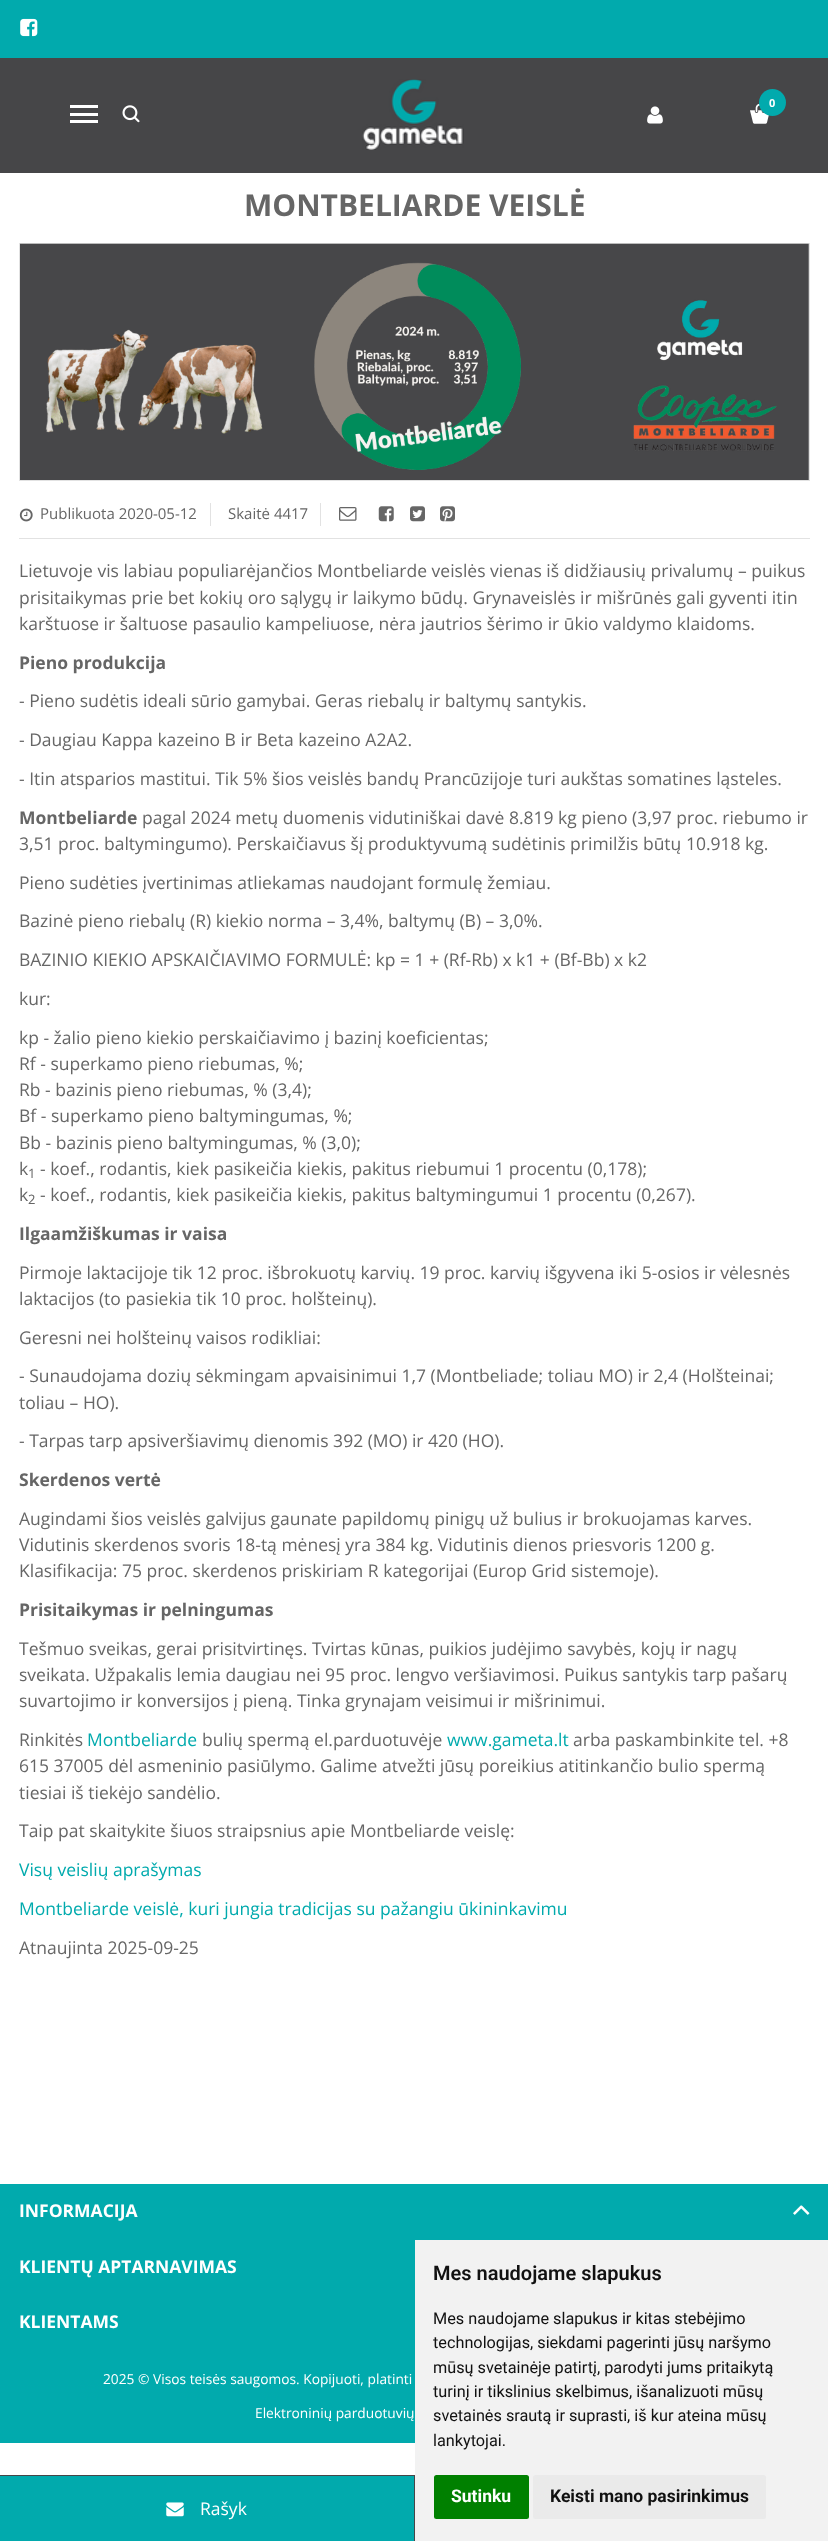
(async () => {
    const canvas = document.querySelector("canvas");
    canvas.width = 828;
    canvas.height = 2541;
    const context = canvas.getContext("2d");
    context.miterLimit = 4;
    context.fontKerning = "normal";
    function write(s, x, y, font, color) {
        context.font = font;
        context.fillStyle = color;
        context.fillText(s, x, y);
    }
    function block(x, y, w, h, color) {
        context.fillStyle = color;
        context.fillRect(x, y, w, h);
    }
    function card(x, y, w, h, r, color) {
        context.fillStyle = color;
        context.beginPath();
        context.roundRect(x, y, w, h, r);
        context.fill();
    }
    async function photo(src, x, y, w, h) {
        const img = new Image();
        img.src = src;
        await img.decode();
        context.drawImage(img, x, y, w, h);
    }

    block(0, 0, 828, 2541, "rgb(255, 255, 255)");
    block(0, 0, 828, 58, "rgb(1, 170, 173)");
    await photo("media/1.png", 20, 18, 18, 19);
    block(0, 58, 828, 115, "rgb(70, 70, 72)");
    await photo("media/2.png", 362, 79, 102, 71);
    await photo("media/3.png", 750, 103, 19, 21);
    context.fillStyle = "rgb(1, 170, 173)";
    context.beginPath();
    context.arc(772.5, 102.5, 13.5, 0, Math.PI * 2);
    context.fill();
    write("0", 769, 107, "bold 11px Open Sans", "rgb(255, 255, 255)");
    await photo("media/4.png", 647, 106, 16, 18);
    block(70, 105, 28, 3, "rgb(255, 255, 255)");
    block(70, 113, 28, 3, "rgb(255, 255, 255)");
    block(70, 120, 28, 3, "rgb(255, 255, 255)");
    await photo("media/5.png", 122, 105, 18, 18);
    write("MONTBELIARDE VEISLĖ", 244, 216, "bold 30px Open Sans", "rgb(102, 102, 102)");
    context.strokeStyle = "rgb(226, 226, 226)";
    context.strokeRect(19.5, 243.5, 790, 237);
    await photo("media/6.png", 20, 243, 789, 237);
    block(19, 538, 791, 1, "rgb(226, 226, 226)");
    block(210, 503, 1, 23, "rgb(226, 226, 226)");
    await photo("media/7.png", 19, 508, 14, 14);
    write("Publikuota 2020-05-12", 40, 519, "15px Open Sans", "rgb(102, 102, 102)");
    block(320, 503, 1, 23, "rgb(226, 226, 226)");
    write("Skaitė 4417", 228, 519, "15px Open Sans", "rgb(102, 102, 102)");
    write("9", 339, 522, "17.5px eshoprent", "rgb(102, 102, 102)");
    await photo("media/8.png", 378, 506, 16, 16);
    await photo("media/9.png", 410, 506, 15, 16);
    await photo("media/10.png", 440, 506, 15, 16);
    write("Lietuvoje vis labiau populiarėjančios Montbeliarde veislės vienas iš didžiausių privalumų – puikus", 19, 577, "17.5px Open Sans", "rgb(102, 102, 102)");
    write("prisitaikymas prie bet kokių oro sąlygų ir laikymo būdų. Grynaveislės ir mišrūnės gali gyventi itin", 19, 604, "17.5px Open Sans", "rgb(102, 102, 102)");
    write("karštuose ir šaltuose pasaulio kampeliuose, nėra jautrios šėrimo ir ūkio valdymo klaidoms.", 19, 630, "17.5px Open Sans", "rgb(102, 102, 102)");
    write("Pieno produkcija", 19, 669, "bold 17.5px Open Sans", "rgb(102, 102, 102)");
    write("- Pieno sudėtis ideali sūrio gamybai. Geras riebalų ir baltymų santykis.", 19, 707, "17.5px Open Sans", "rgb(102, 102, 102)");
    write("- Daugiau Kappa kazeino B ir Beta kazeino A2A2.", 19, 746, "17.5px Open Sans", "rgb(102, 102, 102)");
    write("- Itin atsparios mastitui. Tik 5% šios veislės bandų Prancūzijoje turi aukštas somatines ląsteles.", 19, 785, "17.5px Open Sans", "rgb(102, 102, 102)");
    write("Montbeliarde", 19, 824, "bold 17.5px Open Sans", "rgb(102, 102, 102)");
    write("pagal 2024 metų duomenis vidutiniškai davė 8.819 kg pieno (3,97 proc. riebumo ir", 142, 824, "17.5px Open Sans", "rgb(102, 102, 102)");
    write("3,51 proc. baltymingumo). Perskaičiavus šį produktyvumą sudėtinis primilžis būtų 10.918 kg.", 19, 850, "17.5px Open Sans", "rgb(102, 102, 102)");
    write("Pieno sudėties įvertinimas atliekamas naudojant formulę žemiau.", 19, 889, "17.5px Open Sans", "rgb(102, 102, 102)");
    write("Bazinė pieno riebalų (R) kiekio norma – 3,4%, baltymų (B) – 3,0%.", 19, 927, "17.5px Open Sans", "rgb(102, 102, 102)");
    write("BAZINIO KIEKIO APSKAIČIAVIMO FORMULĖ: kp = 1 + (Rf-Rb) x k1 + (Bf-Bb) x k2", 19, 966, "17.5px Open Sans", "rgb(102, 102, 102)");
    write("kur:", 19, 1005, "17.5px Open Sans", "rgb(102, 102, 102)");
    write("kp - žalio pieno kiekio perskaičiavimo į bazinį koeficientas;", 19, 1044, "17.5px Open Sans", "rgb(102, 102, 102)");
    write("Rf - superkamo pieno riebumas, %;", 19, 1070, "17.5px Open Sans", "rgb(102, 102, 102)");
    write("Rb - bazinis pieno riebumas, % (3,4);", 19, 1096, "17.5px Open Sans", "rgb(102, 102, 102)");
    write("Bf - superkamo pieno baltymingumas, %;", 19, 1122, "17.5px Open Sans", "rgb(102, 102, 102)");
    write("Bb - bazinis pieno baltymingumas, % (3,0);", 19, 1149, "17.5px Open Sans", "rgb(102, 102, 102)");
    write("k", 19, 1175, "17.5px Open Sans", "rgb(102, 102, 102)");
    write("1", 28, 1178, "13px Open Sans", "rgb(102, 102, 102)");
    write("- koef., rodantis, kiek pasikeičia kiekis, pakitus riebumui 1 procentu (0,178);", 40, 1175, "17.5px Open Sans", "rgb(102, 102, 102)");
    write("k", 19, 1201, "17.5px Open Sans", "rgb(102, 102, 102)");
    write("2", 28, 1204, "13px Open Sans", "rgb(102, 102, 102)");
    write("- koef., rodantis, kiek pasikeičia kiekis, pakitus baltymingumui 1 procentu (0,267).", 40, 1201, "17.5px Open Sans", "rgb(102, 102, 102)");
    write("Ilgaamžiškumas ir vaisa", 19, 1240, "bold 17.5px Open Sans", "rgb(102, 102, 102)");
    write("Pirmoje laktacijoje tik 12 proc. išbrokuotų karvių. 19 proc. karvių išgyvena iki 5-osios ir vėlesnės", 19, 1279, "17.5px Open Sans", "rgb(102, 102, 102)");
    write("laktacijos (to pasiekia tik 10 proc. holšteinų).", 19, 1305, "17.5px Open Sans", "rgb(102, 102, 102)");
    write("Geresni nei holšteinų vaisos rodikliai:", 19, 1344, "17.5px Open Sans", "rgb(102, 102, 102)");
    write("- Sunaudojama dozių sėkmingam apvaisinimui 1,7 (Montbeliade; toliau MO) ir 2,4 (Holšteinai;", 19, 1382, "17.5px Open Sans", "rgb(102, 102, 102)");
    write("toliau – HO).", 19, 1409, "17.5px Open Sans", "rgb(102, 102, 102)");
    write("- Tarpas tarp apsiveršiavimų dienomis 392 (MO) ir 420 (HO).", 19, 1447, "17.5px Open Sans", "rgb(102, 102, 102)");
    write("Skerdenos vertė", 19, 1486, "bold 17.5px Open Sans", "rgb(102, 102, 102)");
    write("Augindami šios veislės galvijus gaunate papildomų pinigų už bulius ir brokuojamas karves.", 19, 1525, "17.5px Open Sans", "rgb(102, 102, 102)");
    write("Vidutinis skerdenos svoris 18-tą mėnesį yra 384 kg. Vidutinis dienos priesvoris 1200 g.", 19, 1551, "17.5px Open Sans", "rgb(102, 102, 102)");
    write("Klasifikacija: 75 proc. skerdenos priskiriam R kategorijai (Europ Grid sistemoje).", 19, 1577, "17.5px Open Sans", "rgb(102, 102, 102)");
    write("Prisitaikymas ir pelningumas", 19, 1616, "bold 17.5px Open Sans", "rgb(102, 102, 102)");
    write("Tešmuo sveikas, gerai prisitvirtinęs. Tvirtas kūnas, puikios judėjimo savybės, kojų ir nagų", 19, 1655, "17.5px Open Sans", "rgb(102, 102, 102)");
    write("sveikata. Užpakalis lemia daugiau nei 95 proc. lengvo veršiavimosi. Puikus santykis tarp pašarų", 19, 1681, "17.5px Open Sans", "rgb(102, 102, 102)");
    write("suvartojimo ir konversijos į pieną. Tinka grynajam veisimui ir mišrinimui.", 19, 1707, "17.5px Open Sans", "rgb(102, 102, 102)");
    write("Rinkitės", 19, 1746, "17.5px Open Sans", "rgb(102, 102, 102)");
    write("Montbeliarde", 87, 1746, "17.5px Open Sans", "rgb(1, 170, 173)");
    write("bulių spermą el.parduotuvėje", 202, 1746, "17.5px Open Sans", "rgb(102, 102, 102)");
    write("www.gameta.lt", 447, 1746, "17.5px Open Sans", "rgb(1, 170, 173)");
    write("arba paskambinkite tel. +8", 573, 1746, "17.5px Open Sans", "rgb(102, 102, 102)");
    write("615 37005 dėl asmeninio pasiūlymo. Galime atvežti jūsų poreikius atitinkančio bulio spermą", 19, 1772, "17.5px Open Sans", "rgb(102, 102, 102)");
    write("tiesiai iš tiekėjo sandėlio.", 19, 1799, "17.5px Open Sans", "rgb(102, 102, 102)");
    write("Taip pat skaitykite šiuos straipsnius apie Montbeliarde veislę:", 19, 1837, "17.5px Open Sans", "rgb(102, 102, 102)");
    write("Visų veislių aprašymas", 19, 1876, "17.5px Open Sans", "rgb(1, 170, 173)");
    write("Montbeliarde veislė, kuri jungia tradicijas su pažangiu ūkininkavimu", 19, 1915, "17.5px Open Sans", "rgb(1, 170, 173)");
    write("Atnaujinta 2025-09-25", 19, 1954, "17.5px Open Sans", "rgb(102, 102, 102)");
    block(0, 2184, 828, 259, "rgb(1, 170, 173)");
    write("INFORMACIJA", 19, 2217, "bold 17.5px Open Sans", "rgb(255, 255, 255)");
    await photo("media/11.png", 793, 2205, 17, 10);
    write("KLIENTŲ APTARNAVIMAS", 19, 2273, "bold 17.5px Open Sans", "rgb(255, 255, 255)");
    write("KLIENTAMS", 19, 2328, "bold 17.5px Open Sans", "rgb(255, 255, 255)");
    write("2025 © Visos teisės saugomos. Kopijuoti, platinti", 103, 2384, "13.75px Open Sans", "rgb(255, 255, 255)");
    write("Elektroninių parduotuvių", 255, 2418, "13.75px Open Sans", "rgb(255, 255, 255)");
    block(415, 2240, 413, 301, "rgb(242, 242, 242)");
    write("Mes naudojame slapukus", 433, 2280, "600 20px Roboto", "rgb(17, 17, 17)");
    write("Mes naudojame slapukus ir kitas stebėjimo", 433, 2324, "16.25px Roboto", "rgb(17, 17, 17)");
    write("technologijas, siekdami pagerinti jūsų naršymo", 433, 2348, "16.25px Roboto", "rgb(17, 17, 17)");
    write("mūsų svetainėje patirtį, parodyti jums pritaikytą", 433, 2373, "16.25px Roboto", "rgb(17, 17, 17)");
    write("turinį ir tikslinius skelbimus, išanalizuoti mūsų", 433, 2397, "16.25px Roboto", "rgb(17, 17, 17)");
    write("svetainės srautą ir suprasti, iš kur ateina mūsų", 433, 2421, "16.25px Roboto", "rgb(17, 17, 17)");
    write("lankytojai.", 433, 2446, "16.25px Roboto", "rgb(17, 17, 17)");
    card(434, 2475, 95, 44, 2.5, "rgb(0, 128, 0)");
    write("Sutinku", 451, 2502, "bold 17.5px Roboto", "rgb(255, 255, 255)");
    card(533, 2475, 233, 44, 2.5, "rgb(234, 234, 234)");
    write("Keisti mano pasirinkimus", 550, 2502, "bold 17.5px Roboto", "rgb(17, 17, 17)");
    block(0, 2476, 414, 65, "rgb(1, 170, 173)");
    block(0, 2475, 415, 1, "rgb(70, 70, 72)");
    block(414, 2476, 1, 65, "rgb(70, 70, 72)");
    await photo("media/12.png", 166, 2502, 18, 15);
    write("Rašyk", 200, 2515, "17.5px Open Sans", "rgb(255, 255, 255)");
})();
